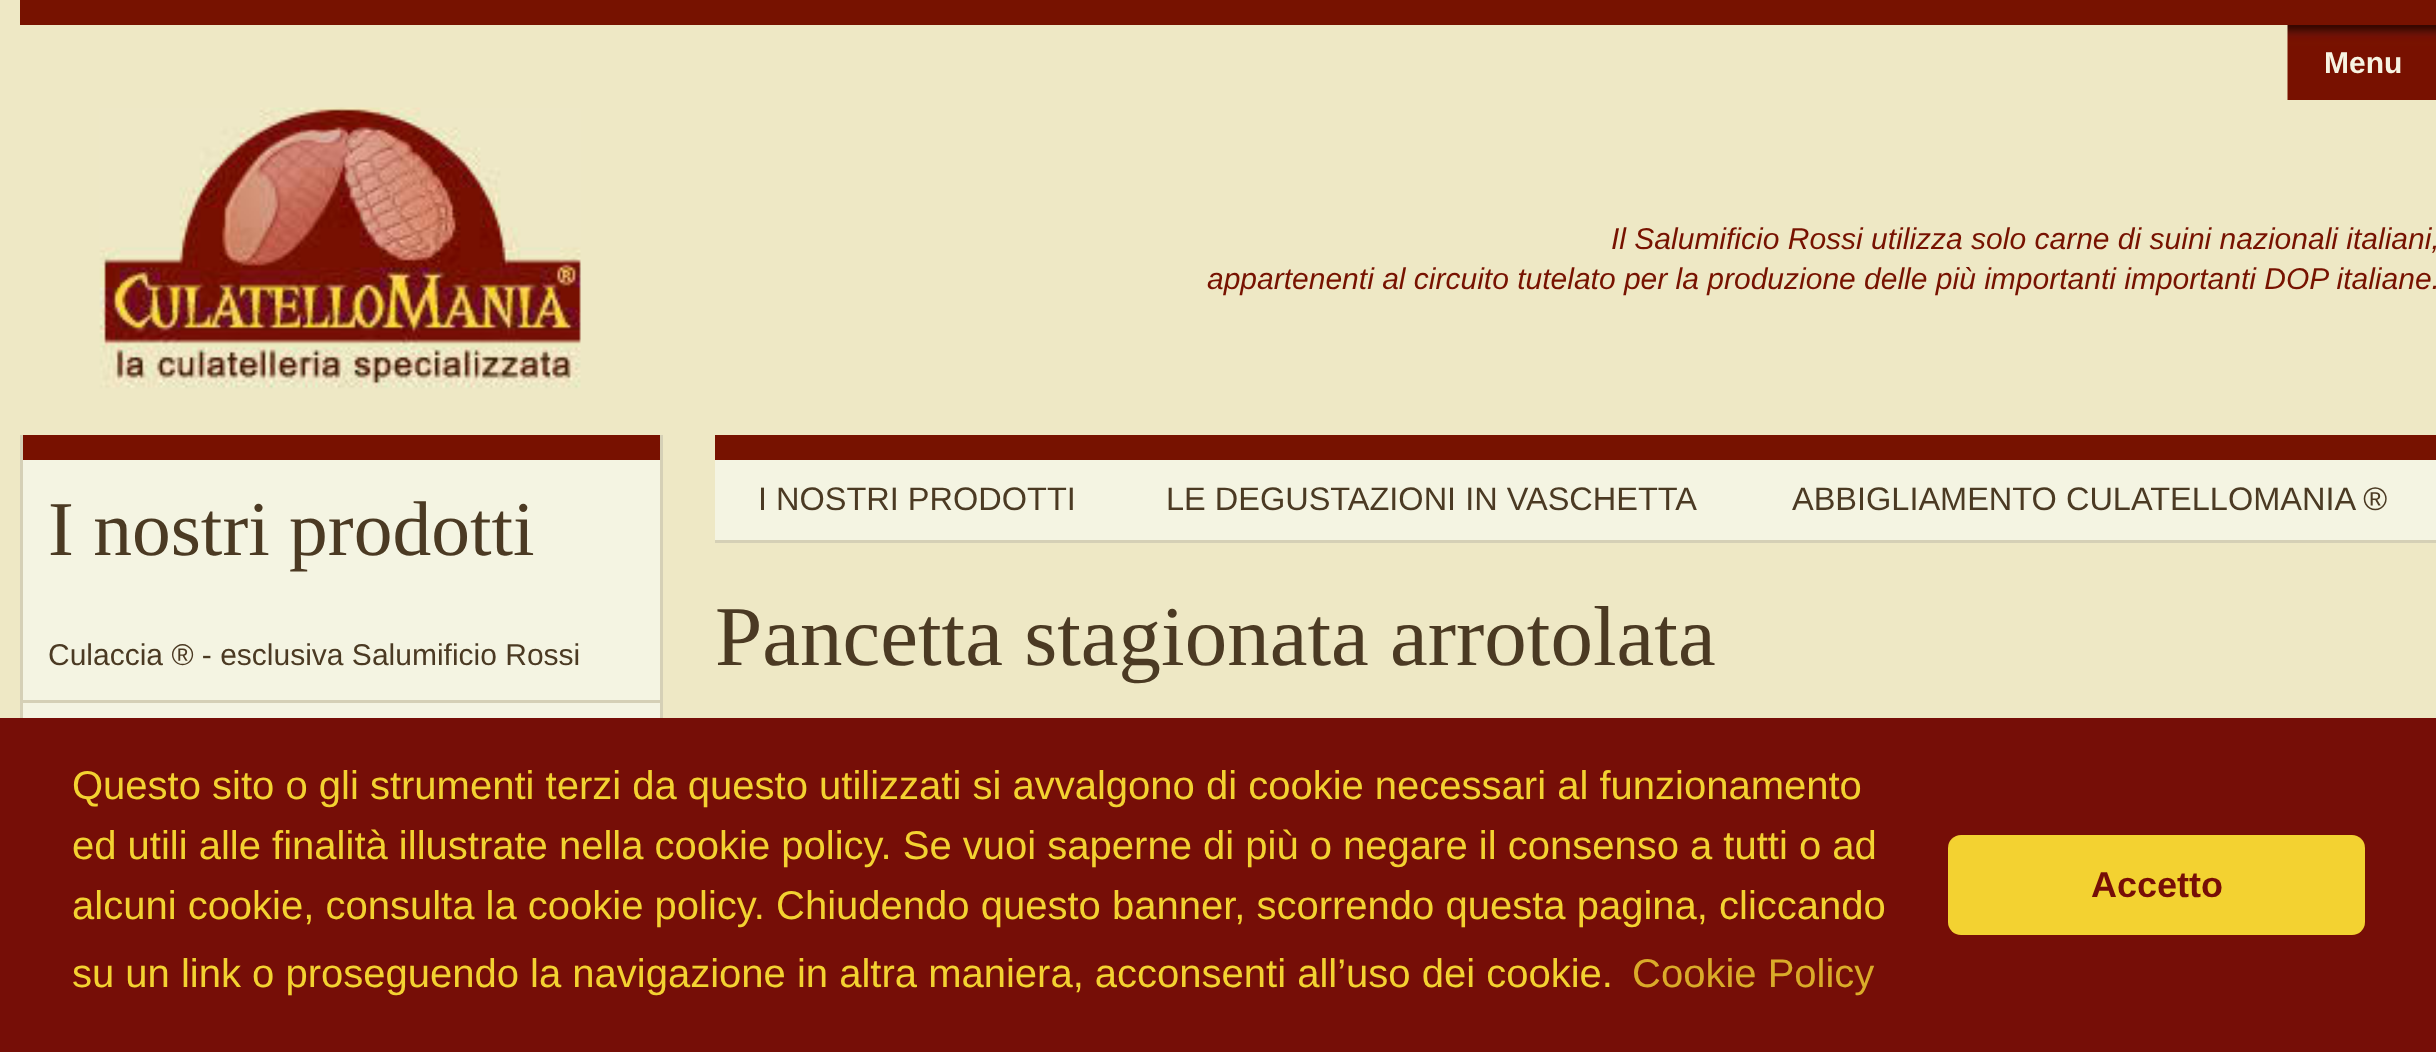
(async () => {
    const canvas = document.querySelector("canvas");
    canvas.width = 2436;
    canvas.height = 1052;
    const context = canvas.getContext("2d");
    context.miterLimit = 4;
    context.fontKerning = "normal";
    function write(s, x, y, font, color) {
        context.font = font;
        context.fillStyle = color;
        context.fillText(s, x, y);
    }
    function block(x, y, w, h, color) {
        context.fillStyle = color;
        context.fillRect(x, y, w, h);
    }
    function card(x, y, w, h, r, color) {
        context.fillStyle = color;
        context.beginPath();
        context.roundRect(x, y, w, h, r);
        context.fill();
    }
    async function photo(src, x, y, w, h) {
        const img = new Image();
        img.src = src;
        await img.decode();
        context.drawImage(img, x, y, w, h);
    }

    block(0, 0, 2436, 1052, "rgb(238, 232, 197)");
    block(20, 0, 2416, 25, "rgb(119, 18, 0)");
    await photo("media/1.png", 2287, 25, 149, 75);
    write("Menu", 2324, 73, "bold 30px Liberation Sans", "rgb(247, 244, 226)");
    await photo("media/2.png", 99, 107, 482, 282);
    write("Il Salumificio Rossi utilizza solo carne di suini nazionali italiani,", 1611, 249, "italic 30px Liberation Sans", "rgb(119, 18, 0)");
    write("appartenenti al circuito tutelato per la produzione delle più importanti importanti DOP italiane.", 1207, 289, "italic 30px Liberation Sans", "rgb(119, 18, 0)");
    block(23, 460, 637, 258, "rgb(244, 244, 226)");
    block(23, 435, 637, 25, "rgb(120, 17, 0)");
    block(660, 435, 3, 283, "rgb(213, 208, 182)");
    block(20, 435, 3, 283, "rgb(213, 208, 182)");
    write("I nostri prodotti", 48, 555, "77.5px Liberation Serif", "rgb(75, 58, 35)");
    block(23, 700, 637, 3, "rgb(213, 208, 182)");
    write("Culaccia ® - esclusiva Salumificio Rossi", 48, 665, "30px Liberation Sans", "rgb(75, 58, 35)");
    block(715, 460, 1721, 80, "rgb(244, 244, 226)");
    block(715, 435, 1721, 25, "rgb(119, 18, 0)");
    block(715, 540, 1721, 3, "rgb(213, 208, 182)");
    write("I NOSTRI PRODOTTI", 758, 510, "32.5px Liberation Sans", "rgb(75, 58, 35)");
    write("LE DEGUSTAZIONI IN VASCHETTA", 1166, 510, "32.5px Liberation Sans", "rgb(75, 58, 35)");
    write("ABBIGLIAMENTO CULATELLOMANIA ®", 1792, 510, "32.5px Liberation Sans", "rgb(75, 58, 35)");
    write("Pancetta stagionata arrotolata", 715, 665, "85px Liberation Serif", "rgb(75, 58, 35)");
    block(0, 718, 2436, 334, "rgb(118, 14, 7)");
    write("Questo sito o gli strumenti terzi da questo utilizzati si avvalgono di cookie necessari al funzionamento", 72, 799, "40px Liberation Sans", "rgb(243, 210, 49)");
    write("ed utili alle finalità illustrate nella cookie policy. Se vuoi saperne di più o negare il consenso a tutti o ad", 72, 859, "40px Liberation Sans", "rgb(243, 210, 49)");
    write("alcuni cookie, consulta la cookie policy. Chiudendo questo banner, scorrendo questa pagina, cliccando", 72, 919, "40px Liberation Sans", "rgb(243, 210, 49)");
    write("su un link o proseguendo la navigazione in altra maniera, acconsenti all’uso dei cookie.", 72, 987, "40px Liberation Sans", "rgb(243, 210, 49)");
    write("Cookie Policy", 1632, 987, "40px Liberation Sans", "rgb(218, 171, 41)");
    card(1948, 835, 417, 100, 13, "rgb(243, 210, 49)");
    write("Accetto", 2091, 897, "bold 36px Liberation Sans", "rgb(118, 14, 7)");
})();
